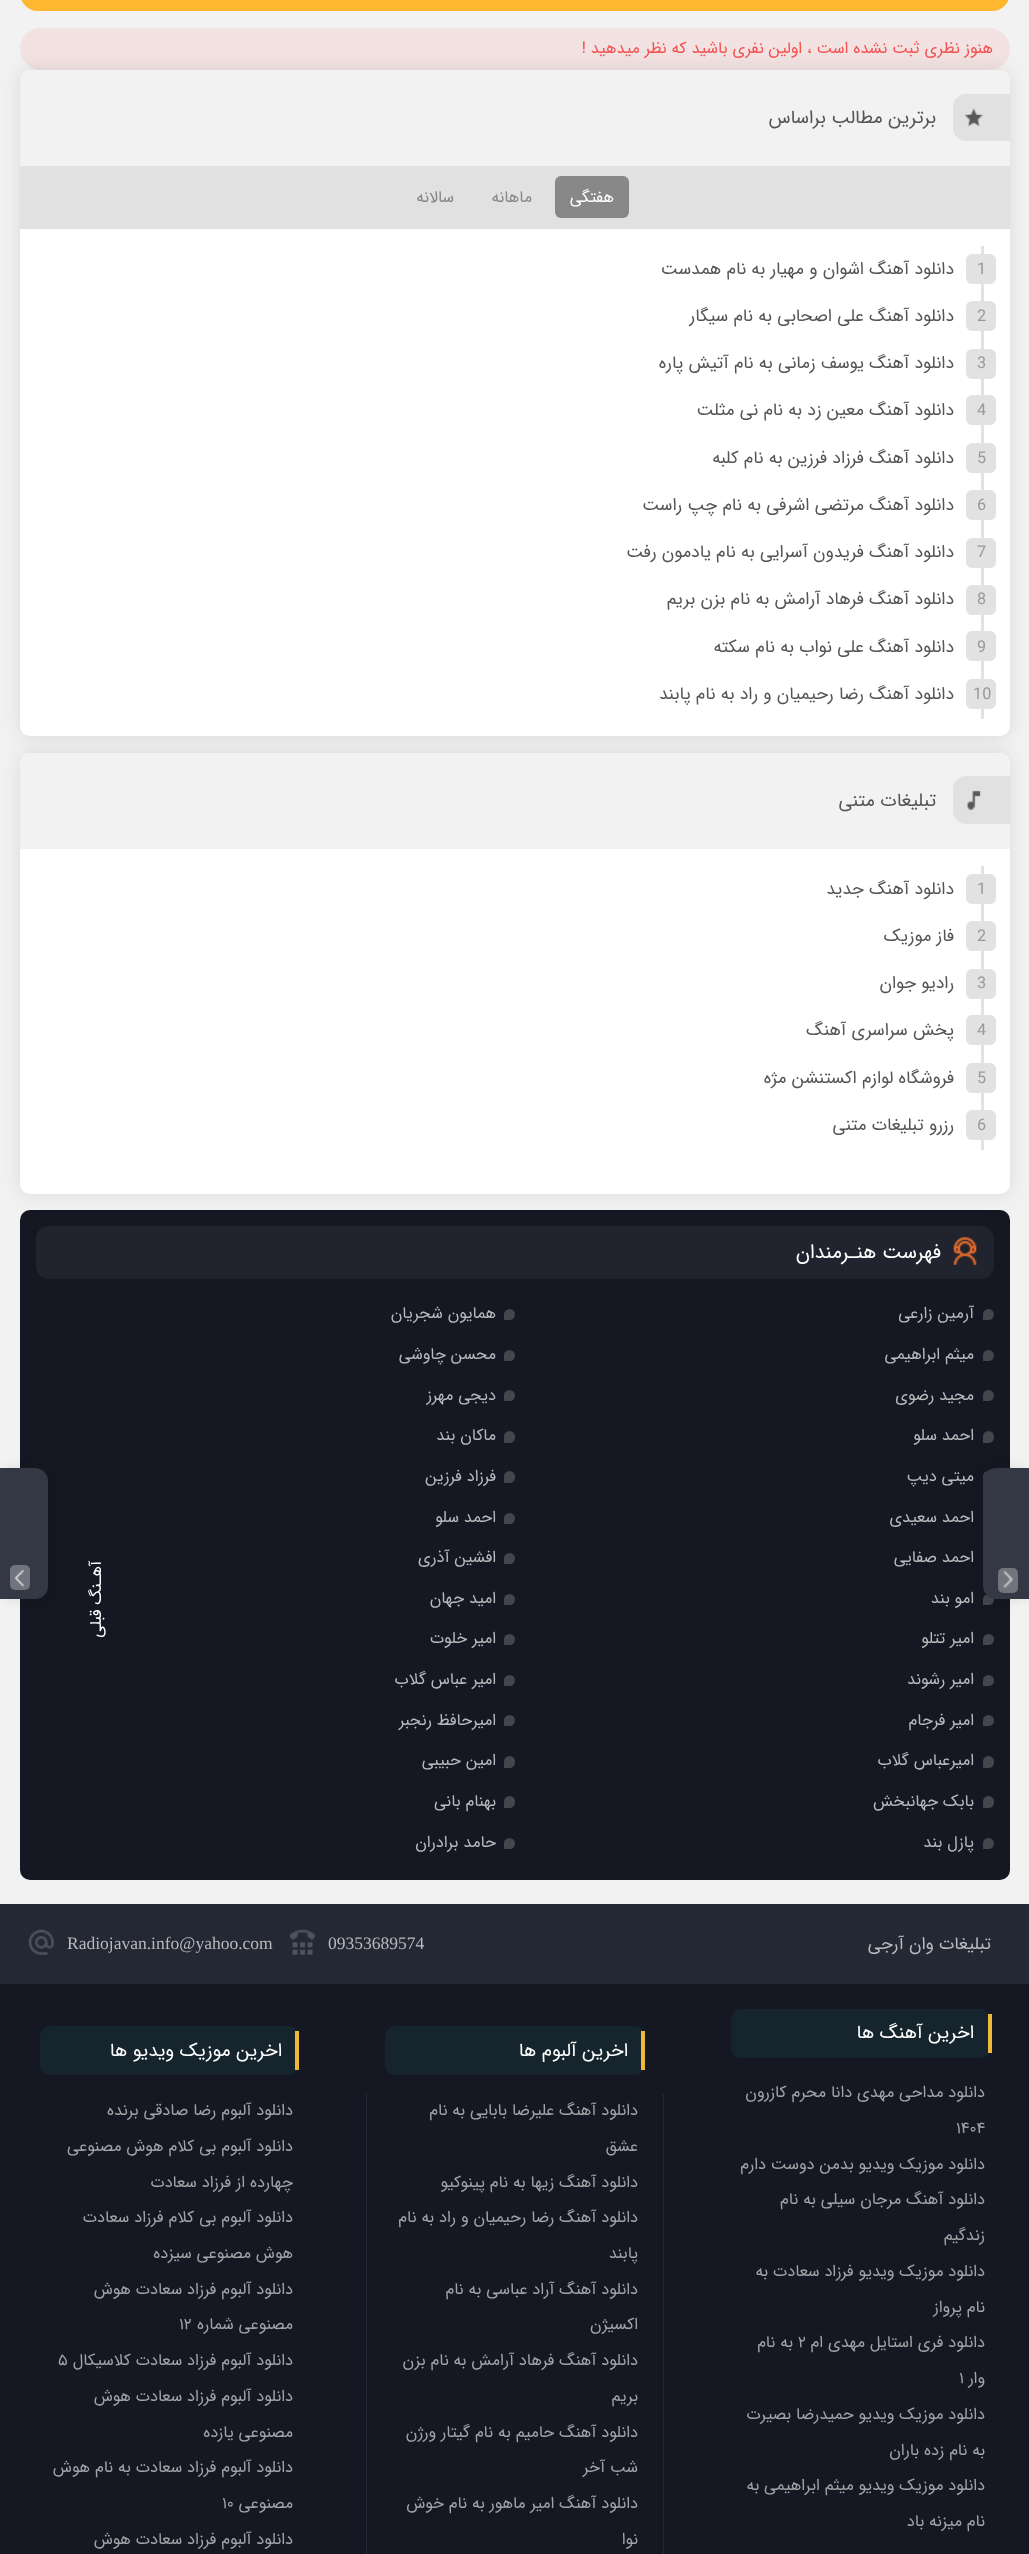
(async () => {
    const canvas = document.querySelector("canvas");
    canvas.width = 1029;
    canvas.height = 2554;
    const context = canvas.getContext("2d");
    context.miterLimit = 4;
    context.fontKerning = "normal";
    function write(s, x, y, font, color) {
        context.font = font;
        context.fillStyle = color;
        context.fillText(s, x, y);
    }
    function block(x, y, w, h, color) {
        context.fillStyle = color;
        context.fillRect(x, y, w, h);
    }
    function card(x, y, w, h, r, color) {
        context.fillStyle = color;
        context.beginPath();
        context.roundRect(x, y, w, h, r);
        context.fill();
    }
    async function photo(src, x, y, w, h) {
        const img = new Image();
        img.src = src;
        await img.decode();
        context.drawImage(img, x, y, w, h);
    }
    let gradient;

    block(0, 0, 1029, 2554, "rgb(242, 242, 242)");
    gradient = context.createLinearGradient(515, 11, 515, -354);
    gradient.addColorStop(0, "rgb(254, 183, 47)");
    gradient.addColorStop(1, "rgb(254, 213, 47)");
    context.fillStyle = gradient;
    context.beginPath();
    context.roundRect(20, -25, 990, 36, 25);
    context.fill();
    card(20, 28, 990, 42, 21, "rgb(242, 226, 226)");
    context.direction = "rtl";
    write("هنوز نظری ثبت نشده است ، اولین نفری باشید که نظر میدهید !", 993, 53, "16.25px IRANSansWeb", "rgb(245, 81, 81)");
    card(20, 1210, 990, 670, 10, "rgb(21, 24, 34)");
    context.fillStyle = "rgb(68, 70, 78)";
    context.beginPath();
    context.roundRect(983, 1471, 11, 12, [5.5, 5.5, 5.5, 0]);
    context.fill();
    context.beginPath();
    context.roundRect(983, 1594, 11, 11, [5.5, 5.5, 5.5, 0]);
    context.fill();
    context.fillStyle = "rgba(0, 0, 0, 0.1)";
    context.filter = "blur(6px)";
    context.beginPath();
    context.roundRect(983, 1468, 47, 131, 13);
    context.fill();
    context.filter = "none";
    context.fillStyle = "rgb(52, 56, 69)";
    context.beginPath();
    context.moveTo(996, 1468);
    context.lineTo(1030, 1468);
    context.lineTo(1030, 1599);
    context.lineTo(996, 1599);
    context.bezierCurveTo(989, 1599, 983, 1593, 983, 1586);
    context.lineTo(983, 1481);
    context.bezierCurveTo(983, 1474, 989, 1468, 996, 1468);
    context.closePath();
    context.fill();
    context.fillStyle = "rgb(255, 255, 255)";
    context.save();
    context.translate(1094, 1564);
    context.rotate(-90 * Math.PI / 180);
    context.fillText("آهنـگ بعدی", 0, 0);
    context.restore();
    card(998, 1568, 20, 25, 5, "rgb(113, 116, 125)");
    await photo("media/1.png", 1003, 1570, 11, 18);
    context.fillStyle = "rgba(0, 0, 0, 0.1)";
    context.filter = "blur(6px)";
    context.beginPath();
    context.roundRect(0, 1468, 48, 131, 13);
    context.fill();
    context.filter = "none";
    context.fillStyle = "rgb(52, 56, 69)";
    context.beginPath();
    context.roundRect(0, 1468, 48, 131, [0, 13, 13, 0]);
    context.fill();
    context.fillStyle = "rgb(255, 255, 255)";
    context.save();
    context.translate(101, 1561);
    context.rotate(-90 * Math.PI / 180);
    context.fillText("آهـنگ قبلی", 0, 0);
    context.restore();
    card(10, 1565, 20, 25, 5, "rgb(113, 116, 125)");
    await photo("media/2.png", 14, 1570, 10, 17);
    context.fillStyle = "rgba(0, 0, 0, 0.1)";
    context.filter = "blur(9.5px)";
    context.beginPath();
    context.roundRect(20, 70, 990, 666, 10);
    context.fill();
    context.filter = "none";
    card(20, 70, 990, 666, 10, "rgb(255, 255, 255)");
    context.fillStyle = "rgb(242, 242, 242)";
    context.beginPath();
    context.roundRect(20, 70, 990, 96, [10, 10, 0, 0]);
    context.fill();
    context.fillStyle = "rgb(225, 225, 225)";
    context.beginPath();
    context.roundRect(953, 94, 57, 47, [13, 0, 0, 13]);
    context.fill();
    await photo("media/3.png", 965, 108, 18, 19);
    write("برترین مطالب براساس", 936, 123, "18.75px IRANSansWeb", "rgb(85, 85, 85)");
    block(20, 166, 990, 63, "rgb(225, 225, 225)");
    card(555, 176, 74, 42, 6, "rgb(136, 136, 136)");
    write("هفتگی", 614, 202, "16.25px IRANSansWeb", "rgb(255, 255, 255)");
    write("ماهانه", 532, 202, "16.25px IRANSansWeb", "rgb(136, 136, 136)");
    write("سالانه", 454, 202, "16.25px IRANSansWeb", "rgb(136, 136, 136)");
    block(981, 246, 3, 473, "rgb(226, 226, 226)");
    card(966, 254, 30, 30, 6, "rgb(226, 226, 226)");
    context.direction = "ltr";
    write("1", 977, 274, "16.25px IRANSansWeb", "rgb(153, 153, 153)");
    context.direction = "rtl";
    write("دانلود آهنگ اشوان و مهیار به نام همدست", 954, 274, "17.5px IRANSansWeb", "rgb(85, 85, 85)");
    card(966, 301, 30, 30, 6, "rgb(226, 226, 226)");
    context.direction = "ltr";
    write("2", 977, 321, "16.25px IRANSansWeb", "rgb(153, 153, 153)");
    context.direction = "rtl";
    write("دانلود آهنگ علی اصحابی به نام سیگار", 954, 321, "17.5px IRANSansWeb", "rgb(85, 85, 85)");
    card(966, 349, 30, 30, 6, "rgb(226, 226, 226)");
    context.direction = "ltr";
    write("3", 977, 368, "16.25px IRANSansWeb", "rgb(153, 153, 153)");
    context.direction = "rtl";
    write("دانلود آهنگ یوسف زمانی به نام آتیش پاره", 954, 368, "17.5px IRANSansWeb", "rgb(85, 85, 85)");
    card(966, 395, 30, 30, 6, "rgb(226, 226, 226)");
    context.direction = "ltr";
    write("4", 977, 415, "16.25px IRANSansWeb", "rgb(153, 153, 153)");
    context.direction = "rtl";
    write("دانلود آهنگ معین زد به نام نی مثلت", 954, 415, "17.5px IRANSansWeb", "rgb(85, 85, 85)");
    card(966, 443, 30, 30, 6, "rgb(226, 226, 226)");
    context.direction = "ltr";
    write("5", 977, 463, "16.25px IRANSansWeb", "rgb(153, 153, 153)");
    context.direction = "rtl";
    write("دانلود آهنگ فرزاد فرزین به نام کلبه", 954, 463, "17.5px IRANSansWeb", "rgb(85, 85, 85)");
    card(966, 490, 30, 30, 6, "rgb(226, 226, 226)");
    context.direction = "ltr";
    write("6", 977, 510, "16.25px IRANSansWeb", "rgb(153, 153, 153)");
    context.direction = "rtl";
    write("دانلود آهنگ مرتضی اشرفی به نام چپ راست", 954, 510, "17.5px IRANSansWeb", "rgb(85, 85, 85)");
    card(966, 538, 30, 30, 6, "rgb(226, 226, 226)");
    context.direction = "ltr";
    write("7", 977, 557, "16.25px IRANSansWeb", "rgb(153, 153, 153)");
    context.direction = "rtl";
    write("دانلود آهنگ فریدون آسرایی به نام یادمون رفت", 954, 557, "17.5px IRANSansWeb", "rgb(85, 85, 85)");
    card(966, 585, 30, 30, 6, "rgb(226, 226, 226)");
    context.direction = "ltr";
    write("8", 977, 604, "16.25px IRANSansWeb", "rgb(153, 153, 153)");
    context.direction = "rtl";
    write("دانلود آهنگ فرهاد آرامش به نام بزن بریم", 954, 604, "17.5px IRANSansWeb", "rgb(85, 85, 85)");
    card(966, 631, 30, 30, 6, "rgb(226, 226, 226)");
    context.direction = "ltr";
    write("9", 977, 652, "16.25px IRANSansWeb", "rgb(153, 153, 153)");
    context.direction = "rtl";
    write("دانلود آهنگ علی نواب به نام سکته", 954, 652, "17.5px IRANSansWeb", "rgb(85, 85, 85)");
    card(966, 679, 30, 30, 6, "rgb(226, 226, 226)");
    context.direction = "ltr";
    write("10", 973, 699, "16.25px IRANSansWeb", "rgb(153, 153, 153)");
    context.direction = "rtl";
    write("دانلود آهنگ رضا رحیمیان و راد به نام پابند", 954, 699, "17.5px IRANSansWeb", "rgb(85, 85, 85)");
    context.fillStyle = "rgba(0, 0, 0, 0.1)";
    context.filter = "blur(9.5px)";
    context.beginPath();
    context.roundRect(20, 753, 990, 441, 10);
    context.fill();
    context.filter = "none";
    card(20, 753, 990, 441, 10, "rgb(255, 255, 255)");
    context.fillStyle = "rgb(242, 242, 242)";
    context.beginPath();
    context.roundRect(20, 753, 990, 96, [10, 10, 0, 0]);
    context.fill();
    context.fillStyle = "rgb(225, 225, 225)";
    context.beginPath();
    context.roundRect(953, 776, 57, 48, [13, 0, 0, 13]);
    context.fill();
    await photo("media/4.png", 967, 790, 14, 20);
    write("تبلیغات متنی", 936, 806, "18.75px IRANSansWeb", "rgb(85, 85, 85)");
    block(981, 866, 3, 284, "rgb(226, 226, 226)");
    card(966, 874, 30, 30, 6, "rgb(226, 226, 226)");
    context.direction = "ltr";
    write("1", 977, 894, "16.25px IRANSansWeb", "rgb(153, 153, 153)");
    context.direction = "rtl";
    write("دانلود آهنگ جدید", 954, 894, "17.5px IRANSansWeb", "rgb(85, 85, 85)");
    card(966, 921, 30, 30, 6, "rgb(226, 226, 226)");
    context.direction = "ltr";
    write("2", 977, 941, "16.25px IRANSansWeb", "rgb(153, 153, 153)");
    context.direction = "rtl";
    write("فاز موزیک", 954, 941, "17.5px IRANSansWeb", "rgb(85, 85, 85)");
    card(966, 969, 30, 30, 6, "rgb(226, 226, 226)");
    context.direction = "ltr";
    write("3", 977, 988, "16.25px IRANSansWeb", "rgb(153, 153, 153)");
    context.direction = "rtl";
    write("رادیو جوان", 954, 988, "17.5px IRANSansWeb", "rgb(85, 85, 85)");
    card(966, 1015, 30, 30, 6, "rgb(226, 226, 226)");
    context.direction = "ltr";
    write("4", 977, 1035, "16.25px IRANSansWeb", "rgb(153, 153, 153)");
    context.direction = "rtl";
    write("پخش سراسری آهنگ", 954, 1035, "17.5px IRANSansWeb", "rgb(85, 85, 85)");
    card(966, 1063, 30, 30, 6, "rgb(226, 226, 226)");
    context.direction = "ltr";
    write("5", 977, 1083, "16.25px IRANSansWeb", "rgb(153, 153, 153)");
    context.direction = "rtl";
    write("فروشگاه لوازم اکستنشن مژه", 954, 1083, "17.5px IRANSansWeb", "rgb(85, 85, 85)");
    card(966, 1110, 30, 30, 6, "rgb(226, 226, 226)");
    context.direction = "ltr";
    write("6", 977, 1130, "16.25px IRANSansWeb", "rgb(153, 153, 153)");
    context.direction = "rtl";
    write("رزرو تبلیغات متنی", 954, 1130, "17.5px IRANSansWeb", "rgb(85, 85, 85)");
    card(36, 1226, 958, 53, 13, "rgb(33, 36, 47)");
    await photo("media/5.png", 953, 1237, 24, 28);
    write("فهرست هنـرمندان", 941, 1258, "20px IRANSansWeb", "rgb(255, 255, 255)");
    context.fillStyle = "rgb(68, 70, 78)";
    context.beginPath();
    context.roundRect(983, 1309, 11, 11, [5.5, 5.5, 5.5, 0]);
    context.fill();
    write("آرمین زارعی", 974, 1318, "16.25px IRANSansWeb", "rgb(185, 186, 189)");
    context.fillStyle = "rgb(68, 70, 78)";
    context.beginPath();
    context.roundRect(504, 1309, 11, 11, [5.5, 5.5, 5.5, 0]);
    context.fill();
    write("همایون شجریان", 496, 1318, "16.25px IRANSansWeb", "rgb(185, 186, 189)");
    context.fillStyle = "rgb(68, 70, 78)";
    context.beginPath();
    context.roundRect(983, 1350, 11, 11, [5.5, 5.5, 5.5, 0]);
    context.fill();
    write("میثم ابراهیمی", 974, 1359, "16.25px IRANSansWeb", "rgb(185, 186, 189)");
    context.fillStyle = "rgb(68, 70, 78)";
    context.beginPath();
    context.roundRect(504, 1350, 11, 11, [5.5, 5.5, 5.5, 0]);
    context.fill();
    write("محسن چاوشی", 496, 1359, "16.25px IRANSansWeb", "rgb(185, 186, 189)");
    context.fillStyle = "rgb(68, 70, 78)";
    context.beginPath();
    context.roundRect(983, 1390, 11, 11, [5.5, 5.5, 5.5, 0]);
    context.fill();
    write("مجید رضوی", 974, 1400, "16.25px IRANSansWeb", "rgb(185, 186, 189)");
    context.fillStyle = "rgb(68, 70, 78)";
    context.beginPath();
    context.roundRect(504, 1390, 11, 11, [5.5, 5.5, 5.5, 0]);
    context.fill();
    write("دیجی مهرز", 496, 1400, "16.25px IRANSansWeb", "rgb(185, 186, 189)");
    context.fillStyle = "rgb(68, 70, 78)";
    context.beginPath();
    context.roundRect(983, 1431, 11, 12, [5.5, 5.5, 5.5, 0]);
    context.fill();
    write("احمد سلو", 974, 1440, "16.25px IRANSansWeb", "rgb(185, 186, 189)");
    context.fillStyle = "rgb(68, 70, 78)";
    context.beginPath();
    context.roundRect(504, 1431, 11, 12, [5.5, 5.5, 5.5, 0]);
    context.fill();
    write("ماکان بند", 496, 1440, "16.25px IRANSansWeb", "rgb(185, 186, 189)");
    write("میتی دیپ", 974, 1481, "16.25px IRANSansWeb", "rgb(185, 186, 189)");
    context.fillStyle = "rgb(68, 70, 78)";
    context.beginPath();
    context.roundRect(504, 1471, 11, 12, [5.5, 5.5, 5.5, 0]);
    context.fill();
    write("فرزاد فرزین", 496, 1481, "16.25px IRANSansWeb", "rgb(185, 186, 189)");
    write("احمد سعیدی", 974, 1522, "16.25px IRANSansWeb", "rgb(185, 186, 189)");
    context.fillStyle = "rgb(68, 70, 78)";
    context.beginPath();
    context.roundRect(504, 1513, 11, 11, [5.5, 5.5, 5.5, 0]);
    context.fill();
    write("احمد سلو", 496, 1522, "16.25px IRANSansWeb", "rgb(185, 186, 189)");
    write("احمد صفایی", 974, 1562, "16.25px IRANSansWeb", "rgb(185, 186, 189)");
    context.fillStyle = "rgb(68, 70, 78)";
    context.beginPath();
    context.roundRect(504, 1553, 11, 11, [5.5, 5.5, 5.5, 0]);
    context.fill();
    write("افشین آذری", 496, 1562, "16.25px IRANSansWeb", "rgb(185, 186, 189)");
    write("امو بند", 974, 1603, "16.25px IRANSansWeb", "rgb(185, 186, 189)");
    context.fillStyle = "rgb(68, 70, 78)";
    context.beginPath();
    context.roundRect(504, 1594, 11, 11, [5.5, 5.5, 5.5, 0]);
    context.fill();
    write("امید جهان", 496, 1603, "16.25px IRANSansWeb", "rgb(185, 186, 189)");
    context.fillStyle = "rgb(68, 70, 78)";
    context.beginPath();
    context.roundRect(983, 1634, 11, 11, [5.5, 5.5, 5.5, 0]);
    context.fill();
    write("امیر تتلو", 974, 1643, "16.25px IRANSansWeb", "rgb(185, 186, 189)");
    context.fillStyle = "rgb(68, 70, 78)";
    context.beginPath();
    context.roundRect(504, 1634, 11, 11, [5.5, 5.5, 5.5, 0]);
    context.fill();
    write("امیر خلوت", 496, 1643, "16.25px IRANSansWeb", "rgb(185, 186, 189)");
    context.fillStyle = "rgb(68, 70, 78)";
    context.beginPath();
    context.roundRect(983, 1675, 11, 11, [5.5, 5.5, 5.5, 0]);
    context.fill();
    write("امیر رشوند", 974, 1684, "16.25px IRANSansWeb", "rgb(185, 186, 189)");
    context.fillStyle = "rgb(68, 70, 78)";
    context.beginPath();
    context.roundRect(504, 1675, 11, 11, [5.5, 5.5, 5.5, 0]);
    context.fill();
    write("امیر عباس گلاب", 496, 1684, "16.25px IRANSansWeb", "rgb(185, 186, 189)");
    context.fillStyle = "rgb(68, 70, 78)";
    context.beginPath();
    context.roundRect(983, 1715, 11, 11, [5.5, 5.5, 5.5, 0]);
    context.fill();
    write("امیر فرجام", 974, 1725, "16.25px IRANSansWeb", "rgb(185, 186, 189)");
    context.fillStyle = "rgb(68, 70, 78)";
    context.beginPath();
    context.roundRect(504, 1715, 11, 11, [5.5, 5.5, 5.5, 0]);
    context.fill();
    write("امیرحافظ رنجبر", 496, 1725, "16.25px IRANSansWeb", "rgb(185, 186, 189)");
    context.fillStyle = "rgb(68, 70, 78)";
    context.beginPath();
    context.roundRect(983, 1756, 11, 12, [5.5, 5.5, 5.5, 0]);
    context.fill();
    write("امیرعباس گلاب", 974, 1765, "16.25px IRANSansWeb", "rgb(185, 186, 189)");
    context.fillStyle = "rgb(68, 70, 78)";
    context.beginPath();
    context.roundRect(504, 1756, 11, 12, [5.5, 5.5, 5.5, 0]);
    context.fill();
    write("امین حبیبی", 496, 1765, "16.25px IRANSansWeb", "rgb(185, 186, 189)");
    context.fillStyle = "rgb(68, 70, 78)";
    context.beginPath();
    context.roundRect(983, 1796, 11, 12, [5.5, 5.5, 5.5, 0]);
    context.fill();
    write("بابک جهانبخش", 974, 1806, "16.25px IRANSansWeb", "rgb(185, 186, 189)");
    context.fillStyle = "rgb(68, 70, 78)";
    context.beginPath();
    context.roundRect(504, 1796, 11, 12, [5.5, 5.5, 5.5, 0]);
    context.fill();
    write("بهنام بانی", 496, 1806, "16.25px IRANSansWeb", "rgb(185, 186, 189)");
    context.fillStyle = "rgb(68, 70, 78)";
    context.beginPath();
    context.roundRect(983, 1838, 11, 11, [5.5, 5.5, 5.5, 0]);
    context.fill();
    write("پازل بند", 974, 1847, "16.25px IRANSansWeb", "rgb(185, 186, 189)");
    context.fillStyle = "rgb(68, 70, 78)";
    context.beginPath();
    context.roundRect(504, 1838, 11, 11, [5.5, 5.5, 5.5, 0]);
    context.fill();
    write("حامد برادران", 496, 1847, "16.25px IRANSansWeb", "rgb(185, 186, 189)");
    block(0, 1984, 1029, 570, "rgb(21, 24, 34)");
    block(0, 1904, 1029, 80, "rgb(36, 40, 53)");
    write("تبلیغات وان آرجی", 991, 1949, "17.5px IRANSansWeb", "rgb(185, 186, 189)");
    context.direction = "ltr";
    write("09353689574", 328, 1949, "17.5px Liberation Serif", "rgb(185, 186, 189)");
    await photo("media/6.png", 290, 1929, 25, 26);
    write("Radiojavan.info@yahoo.com", 67, 1949, "17.5px Liberation Serif", "rgb(185, 186, 189)");
    await photo("media/7.png", 28, 1929, 26, 26);
    card(731, 2009, 260, 49, 10, "rgb(21, 36, 45)");
    block(988, 2014, 4, 39, "rgb(239, 184, 56)");
    context.direction = "rtl";
    write("اخرین آهنگ ها", 974, 2038, "18.75px IRANSansWeb", "rgb(255, 255, 255)");
    write("دانلود مداحی مهدی دانا محرم کازرون", 985, 2097, "16.25px IRANSansWeb", "rgb(161, 163, 167)");
    context.direction = "ltr";
    write("۱۴۰۴", 956, 2133, "16.25px IRANSansWeb", "rgb(161, 163, 167)");
    context.direction = "rtl";
    write("دانلود موزیک ویدیو بدمن دوست دارم", 985, 2169, "16.25px IRANSansWeb", "rgb(161, 163, 167)");
    write("دانلود آهنگ مرجان سیلی به نام", 985, 2204, "16.25px IRANSansWeb", "rgb(161, 163, 167)");
    write("زندگیم", 985, 2240, "16.25px IRANSansWeb", "rgb(161, 163, 167)");
    write("دانلود موزیک ویدیو فرزاد سعادت به", 985, 2276, "16.25px IRANSansWeb", "rgb(161, 163, 167)");
    write("نام پرواز", 985, 2312, "16.25px IRANSansWeb", "rgb(161, 163, 167)");
    write("دانلود فری استایل مهدی ام", 985, 2347, "16.25px IRANSansWeb", "rgb(161, 163, 167)");
    context.direction = "ltr";
    write("۲", 798, 2347, "16.25px IRANSansWeb", "rgb(161, 163, 167)");
    context.direction = "rtl";
    write("به نام", 793, 2347, "16.25px IRANSansWeb", "rgb(161, 163, 167)");
    write("وار", 985, 2383, "16.25px IRANSansWeb", "rgb(161, 163, 167)");
    context.direction = "ltr";
    write("۱", 959, 2383, "16.25px IRANSansWeb", "rgb(161, 163, 167)");
    context.direction = "rtl";
    write("دانلود موزیک ویدیو حمیدرضا بصیرت", 985, 2419, "16.25px IRANSansWeb", "rgb(161, 163, 167)");
    write("به نام زده باران", 985, 2455, "16.25px IRANSansWeb", "rgb(161, 163, 167)");
    write("دانلود موزیک ویدیو میثم ابراهیمی به", 985, 2490, "16.25px IRANSansWeb", "rgb(161, 163, 167)");
    write("نام میزنه باد", 985, 2526, "16.25px IRANSansWeb", "rgb(161, 163, 167)");
    card(385, 2026, 260, 49, 10, "rgb(21, 36, 45)");
    block(641, 2031, 4, 39, "rgb(239, 184, 56)");
    write("اخرین آلبوم ها", 628, 2056, "18.75px IRANSansWeb", "rgb(255, 255, 255)");
    block(663, 2094, 1, 460, "rgb(36, 40, 53)");
    block(366, 2094, 1, 460, "rgb(36, 40, 53)");
    write("دانلود آهنگ علیرضا بابایی به نام", 638, 2115, "16.25px IRANSansWeb", "rgb(161, 163, 167)");
    write("عشق", 638, 2151, "16.25px IRANSansWeb", "rgb(161, 163, 167)");
    write("دانلود آهنگ زیها به نام پینوکیو", 638, 2187, "16.25px IRANSansWeb", "rgb(161, 163, 167)");
    write("دانلود آهنگ رضا رحیمیان و راد به نام", 638, 2222, "16.25px IRANSansWeb", "rgb(161, 163, 167)");
    write("پابند", 638, 2258, "16.25px IRANSansWeb", "rgb(161, 163, 167)");
    write("دانلود آهنگ آراد عباسی به نام", 638, 2294, "16.25px IRANSansWeb", "rgb(161, 163, 167)");
    write("اکسیژن", 638, 2329, "16.25px IRANSansWeb", "rgb(161, 163, 167)");
    write("دانلود آهنگ فرهاد آرامش به نام بزن", 638, 2365, "16.25px IRANSansWeb", "rgb(161, 163, 167)");
    write("بریم", 638, 2401, "16.25px IRANSansWeb", "rgb(161, 163, 167)");
    write("دانلود آهنگ حامیم به نام گیتار ورژن", 638, 2437, "16.25px IRANSansWeb", "rgb(161, 163, 167)");
    write("شب آخر", 638, 2472, "16.25px IRANSansWeb", "rgb(161, 163, 167)");
    write("دانلود آهنگ امیر ماهور به نام خوش", 638, 2508, "16.25px IRANSansWeb", "rgb(161, 163, 167)");
    write("نوا", 638, 2544, "16.25px IRANSansWeb", "rgb(161, 163, 167)");
    card(40, 2026, 259, 49, 10, "rgb(21, 36, 45)");
    block(295, 2031, 4, 39, "rgb(239, 184, 56)");
    write("اخرین موزیک ویدیو ها", 282, 2056, "18.75px IRANSansWeb", "rgb(255, 255, 255)");
    write("دانلود آلبوم رضا صادقی برنده", 293, 2115, "16.25px IRANSansWeb", "rgb(161, 163, 167)");
    write("دانلود آلبوم بی کلام هوش مصنوعی", 293, 2151, "16.25px IRANSansWeb", "rgb(161, 163, 167)");
    write("چهارده از فرزاد سعادت", 293, 2187, "16.25px IRANSansWeb", "rgb(161, 163, 167)");
    write("دانلود آلبوم بی کلام فرزاد سعادت", 293, 2222, "16.25px IRANSansWeb", "rgb(161, 163, 167)");
    write("هوش مصنوعی سیزده", 293, 2258, "16.25px IRANSansWeb", "rgb(161, 163, 167)");
    write("دانلود آلبوم فرزاد سعادت هوش", 293, 2294, "16.25px IRANSansWeb", "rgb(161, 163, 167)");
    write("مصنوعی شماره", 293, 2329, "16.25px IRANSansWeb", "rgb(161, 163, 167)");
    context.direction = "ltr";
    write("۱۲", 179, 2329, "16.25px IRANSansWeb", "rgb(161, 163, 167)");
    context.direction = "rtl";
    write("دانلود آلبوم فرزاد سعادت کلاسیکال", 293, 2365, "16.25px IRANSansWeb", "rgb(161, 163, 167)");
    context.direction = "ltr";
    write("۵", 58, 2365, "16.25px IRANSansWeb", "rgb(161, 163, 167)");
    context.direction = "rtl";
    write("دانلود آلبوم فرزاد سعادت هوش", 293, 2401, "16.25px IRANSansWeb", "rgb(161, 163, 167)");
    write("مصنوعی یازده", 293, 2437, "16.25px IRANSansWeb", "rgb(161, 163, 167)");
    write("دانلود آلبوم فرزاد سعادت به نام هوش", 293, 2472, "16.25px IRANSansWeb", "rgb(161, 163, 167)");
    write("مصنوعی", 293, 2508, "16.25px IRANSansWeb", "rgb(161, 163, 167)");
    context.direction = "ltr";
    write("۱۰", 222, 2508, "16.25px IRANSansWeb", "rgb(161, 163, 167)");
    context.direction = "rtl";
    write("دانلود آلبوم فرزاد سعادت هوش", 293, 2544, "16.25px IRANSansWeb", "rgb(161, 163, 167)");
})();
